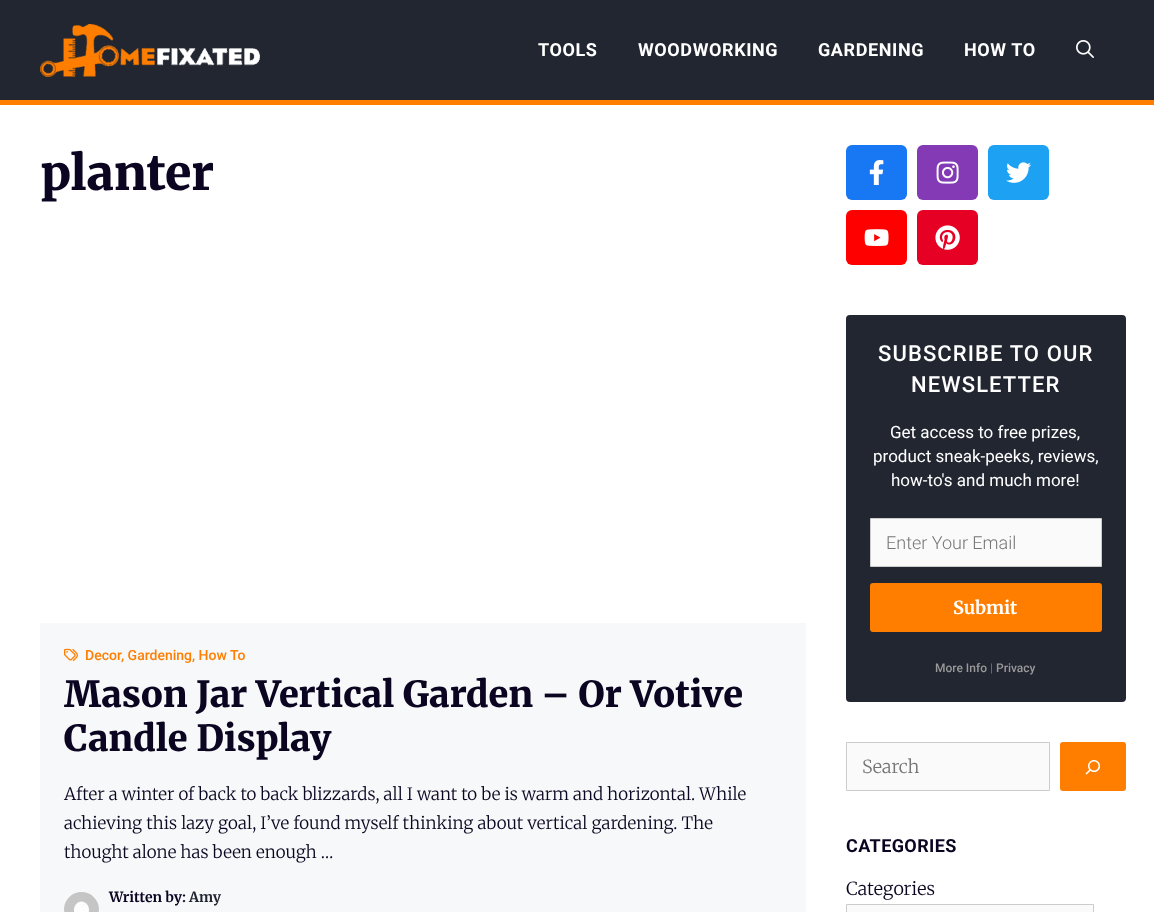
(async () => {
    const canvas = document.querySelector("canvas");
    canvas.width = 1154;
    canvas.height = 912;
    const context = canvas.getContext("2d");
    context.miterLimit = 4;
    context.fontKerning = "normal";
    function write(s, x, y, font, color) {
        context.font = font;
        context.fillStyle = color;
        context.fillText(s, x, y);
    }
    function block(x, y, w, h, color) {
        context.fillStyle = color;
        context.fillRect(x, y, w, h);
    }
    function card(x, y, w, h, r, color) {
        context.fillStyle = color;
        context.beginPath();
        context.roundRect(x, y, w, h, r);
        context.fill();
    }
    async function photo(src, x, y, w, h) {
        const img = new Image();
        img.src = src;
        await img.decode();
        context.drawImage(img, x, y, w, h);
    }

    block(0, 0, 1154, 912, "rgb(255, 255, 255)");
    block(0, 0, 1154, 100, "rgb(34, 38, 49)");
    block(0, 100, 1154, 5, "rgb(255, 126, 0)");
    await photo("media/1.png", 40, 24, 220, 53);
    context.letterSpacing = "0.6px";
    write("TOOLS", 538, 56, "bold 18px Roboto", "rgb(255, 255, 255)");
    write("WOODWORKING", 638, 56, "bold 18px Roboto", "rgb(255, 255, 255)");
    write("GARDENING", 818, 56, "bold 18px Roboto", "rgb(255, 255, 255)");
    write("HOW TO", 964, 56, "bold 18px Roboto", "rgb(255, 255, 255)");
    await photo("media/2.png", 1076, 40, 18, 18);
    context.letterSpacing = "0px";
    write("planter", 40, 190, "900 48px Merriweather", "rgb(11, 5, 33)");
    block(40, 623, 766, 289, "rgb(247, 248, 249)");
    await photo("media/3.png", 64, 648, 14, 14);
    write("Decor", 85, 660, "500 14px Roboto", "rgb(255, 126, 0)");
    write(", Gardening, How To", 121, 660, "500 14px Roboto", "rgb(255, 126, 0)");
    write("Mason Jar Vertical Garden – Or Votive", 64, 707, "900 36px Merriweather", "rgb(11, 5, 33)");
    write("Candle Display", 64, 751, "900 36px Merriweather", "rgb(11, 5, 33)");
    write("After a winter of back to back blizzards, all I want to be is warm and horizontal. While", 64, 800, "300 17px Merriweather", "rgb(11, 5, 33)");
    write("achieving this lazy goal, I’ve found myself thinking about vertical gardening. The", 64, 829, "300 17px Merriweather", "rgb(11, 5, 33)");
    write("thought alone has been enough …", 64, 858, "300 17px Merriweather", "rgb(11, 5, 33)");
    await photo("media/4.png", 64, 892, 35, 20);
    write("Written by:", 109, 902, "bold 14px Merriweather", "rgb(11, 5, 33)");
    write("Amy", 189, 902, "bold 14px Merriweather", "rgb(34, 38, 49)");
    card(846, 145, 61, 55, 6, "rgb(24, 119, 242)");
    await photo("media/5.png", 869, 160, 15, 25);
    card(917, 145, 61, 55, 6, "rgb(131, 58, 180)");
    await photo("media/6.png", 936, 161, 23, 23);
    card(988, 145, 61, 55, 6, "rgb(29, 161, 242)");
    await photo("media/7.png", 1006, 162, 25, 21);
    card(846, 210, 61, 55, 6, "rgb(255, 0, 0)");
    await photo("media/8.png", 864, 229, 25, 17);
    card(917, 210, 61, 55, 6, "rgb(230, 0, 35)");
    await photo("media/9.png", 935, 225, 25, 25);
    card(846, 315, 280, 387, 4, "rgb(34, 38, 49)");
    context.letterSpacing = "1.1px";
    write("SUBSCRIBE TO OUR", 878, 361, "500 22px Roboto", "rgb(255, 255, 255)");
    write("NEWSLETTER", 911, 392, "500 22px Roboto", "rgb(255, 255, 255)");
    context.letterSpacing = "0px";
    write("Get access to free prizes,", 890, 438, "17px Roboto", "rgb(255, 255, 255)");
    write("product sneak-peeks, reviews,", 873, 462, "17px Roboto", "rgb(255, 255, 255)");
    write("how-to's and much more!", 891, 486, "17px Roboto", "rgb(255, 255, 255)");
    context.fillStyle = "rgb(250, 250, 250)";
    context.beginPath();
    context.rect(870.5, 518.5, 231, 48);
    context.fill();
    context.strokeStyle = "rgb(204, 204, 204)";
    context.stroke();
    write("Enter Your Email", 886, 549, "300 18px Roboto", "rgb(117, 117, 117)");
    card(870, 583, 232, 49, 3, "rgb(255, 126, 0)");
    write("Submit", 953, 614, "bold 18px Merriweather", "rgb(255, 255, 255)");
    write("More Info", 935, 672, "500 12px Roboto", "rgb(153, 153, 153)");
    write("|", 990, 672, "500 12px Roboto", "rgb(98, 112, 124)");
    write("Privacy", 996, 672, "500 12px Roboto", "rgb(153, 153, 153)");
    context.fillStyle = "rgb(250, 250, 250)";
    context.beginPath();
    context.rect(846.5, 742.5, 203, 48);
    context.fill();
    context.stroke();
    write("Search", 862, 773, "300 18px Merriweather", "rgb(117, 117, 117)");
    card(1060, 742, 66, 49, 3, "rgb(255, 126, 0)");
    await photo("media/10.png", 1085, 760, 16, 15);
    context.letterSpacing = "0.4px";
    write("CATEGORIES", 846, 852, "bold 18px Roboto", "rgb(11, 5, 33)");
    context.letterSpacing = "0px";
    write("Categories", 846, 895, "300 18px Merriweather", "rgb(11, 5, 33)");
    context.fillStyle = "rgb(250, 250, 250)";
    context.beginPath();
    context.rect(846.5, 904.5, 247, 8);
    context.fill();
    context.stroke();
})();
